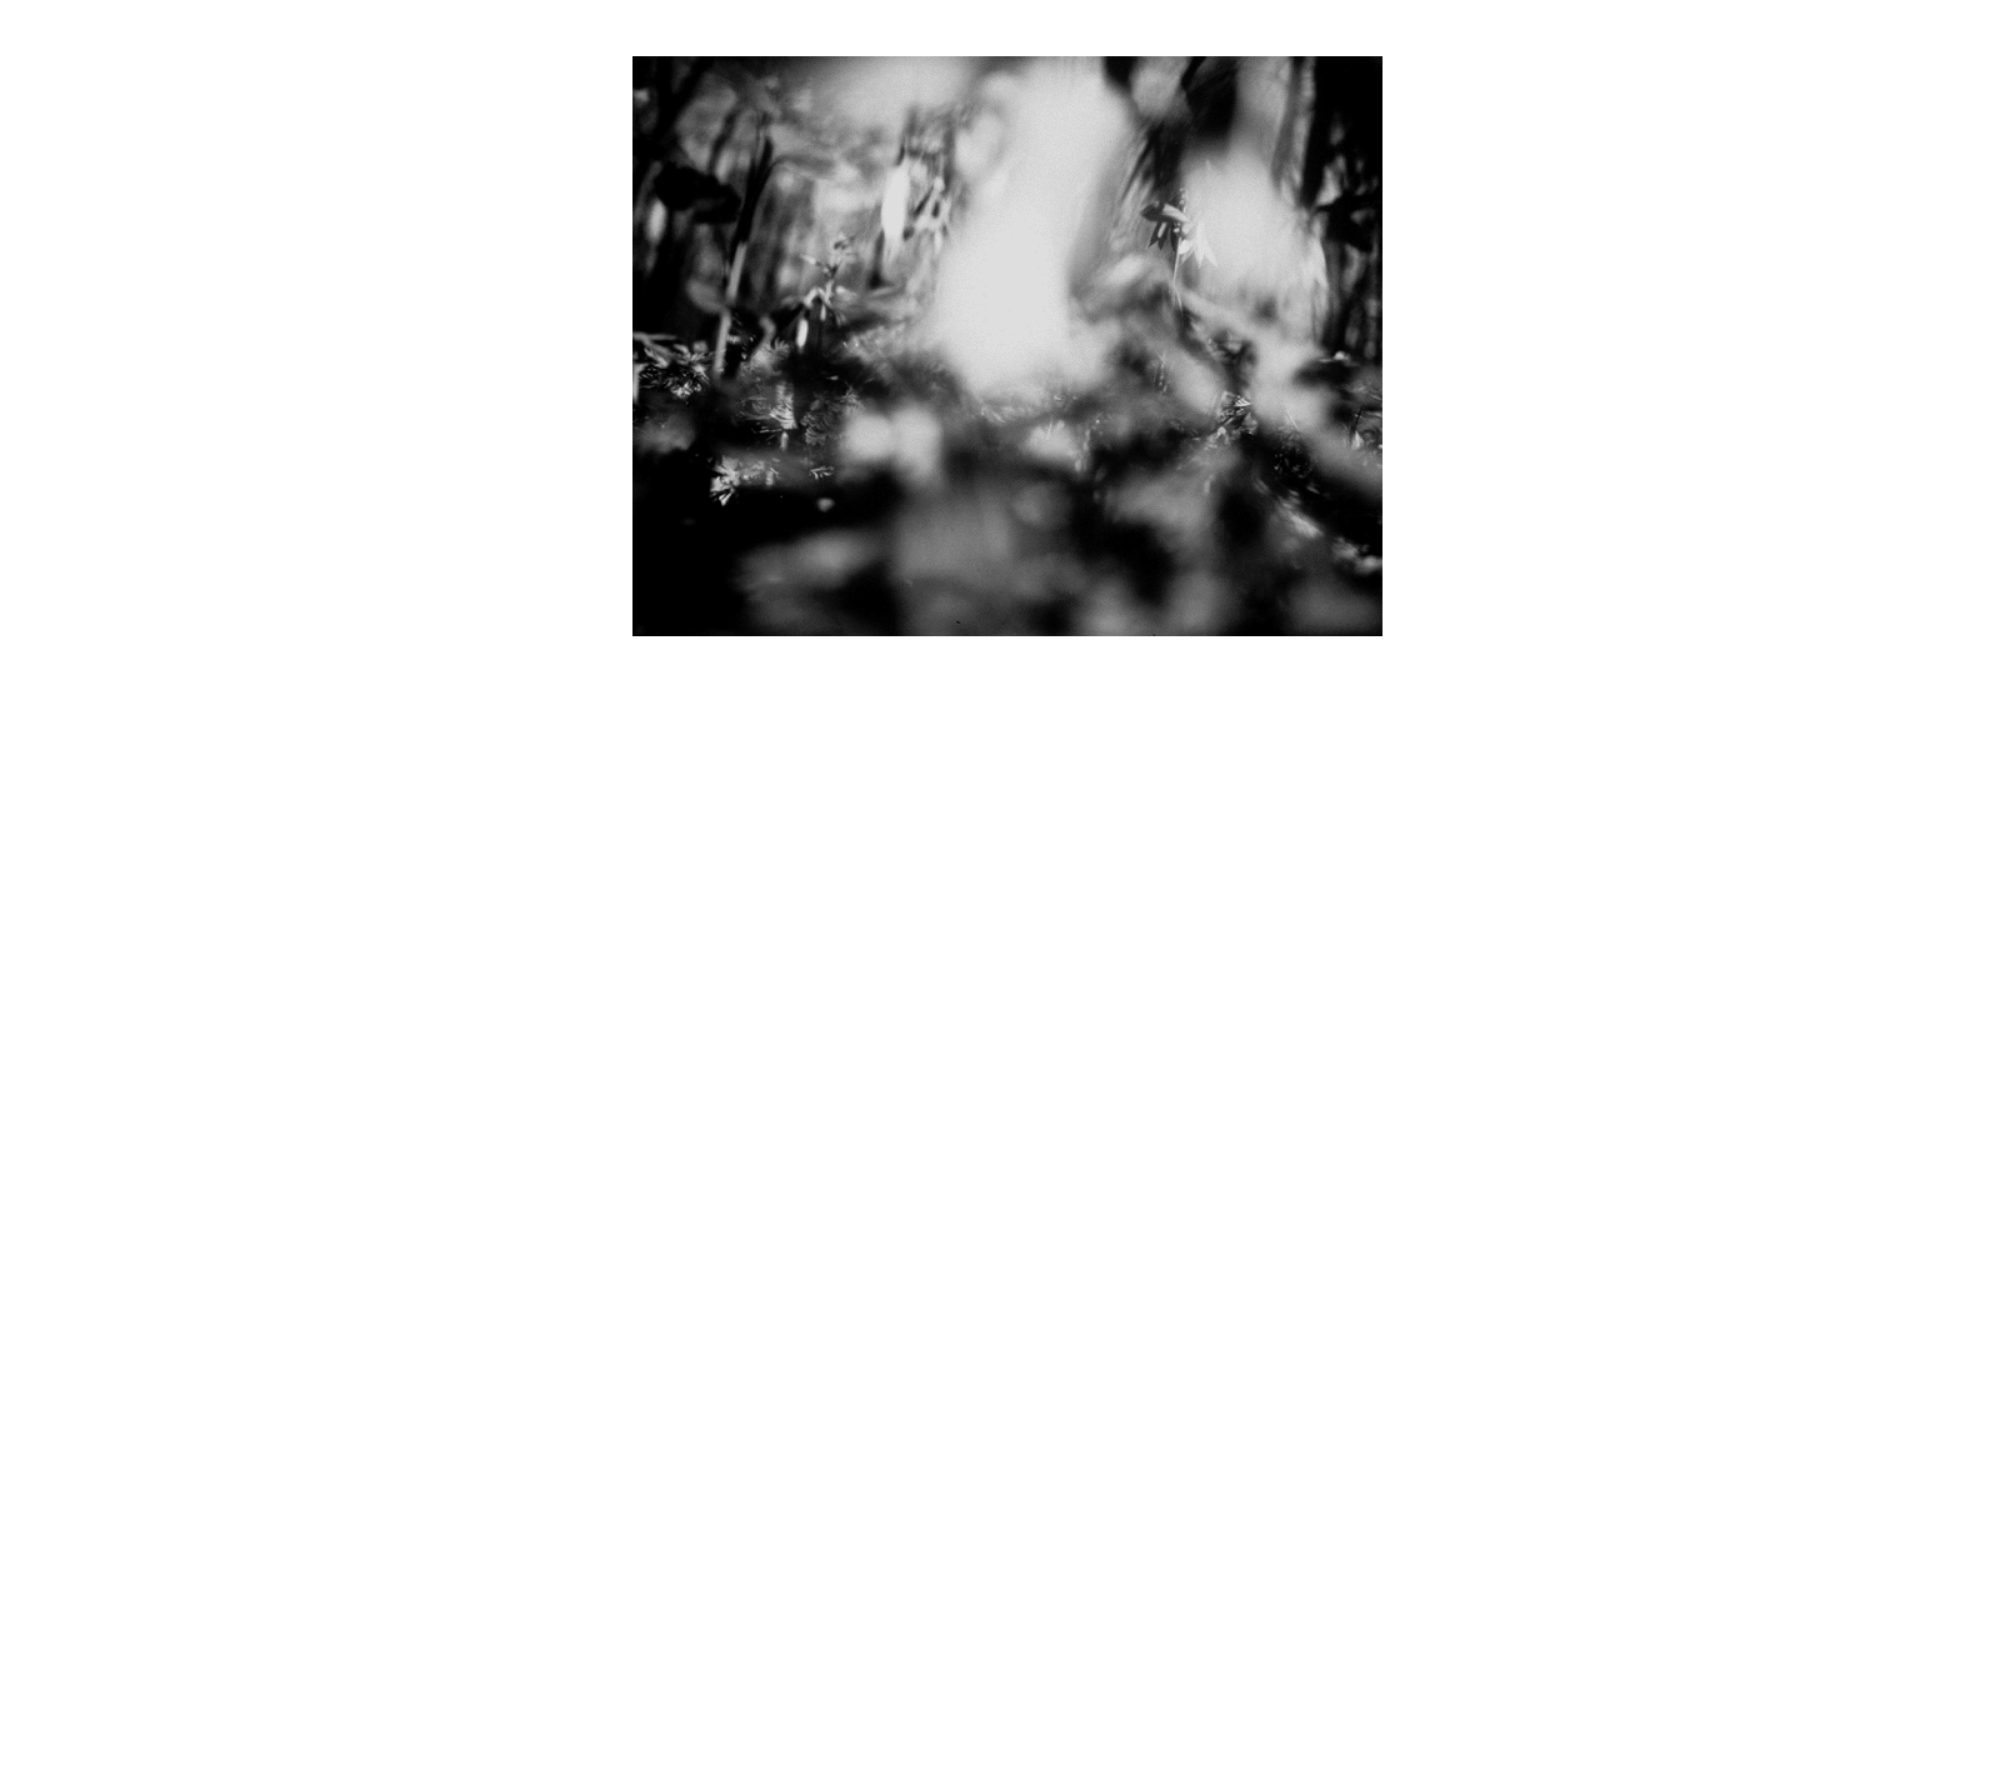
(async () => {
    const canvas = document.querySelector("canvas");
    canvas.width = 2014;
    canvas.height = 1780;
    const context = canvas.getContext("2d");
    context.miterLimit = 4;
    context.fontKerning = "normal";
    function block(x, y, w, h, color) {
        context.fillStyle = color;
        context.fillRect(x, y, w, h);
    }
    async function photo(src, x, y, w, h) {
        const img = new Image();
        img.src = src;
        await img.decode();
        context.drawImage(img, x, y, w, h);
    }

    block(0, 0, 2014, 1780, "rgb(255, 255, 255)");
    await photo("media/1.png", 632, 56, 751, 581);
})();
